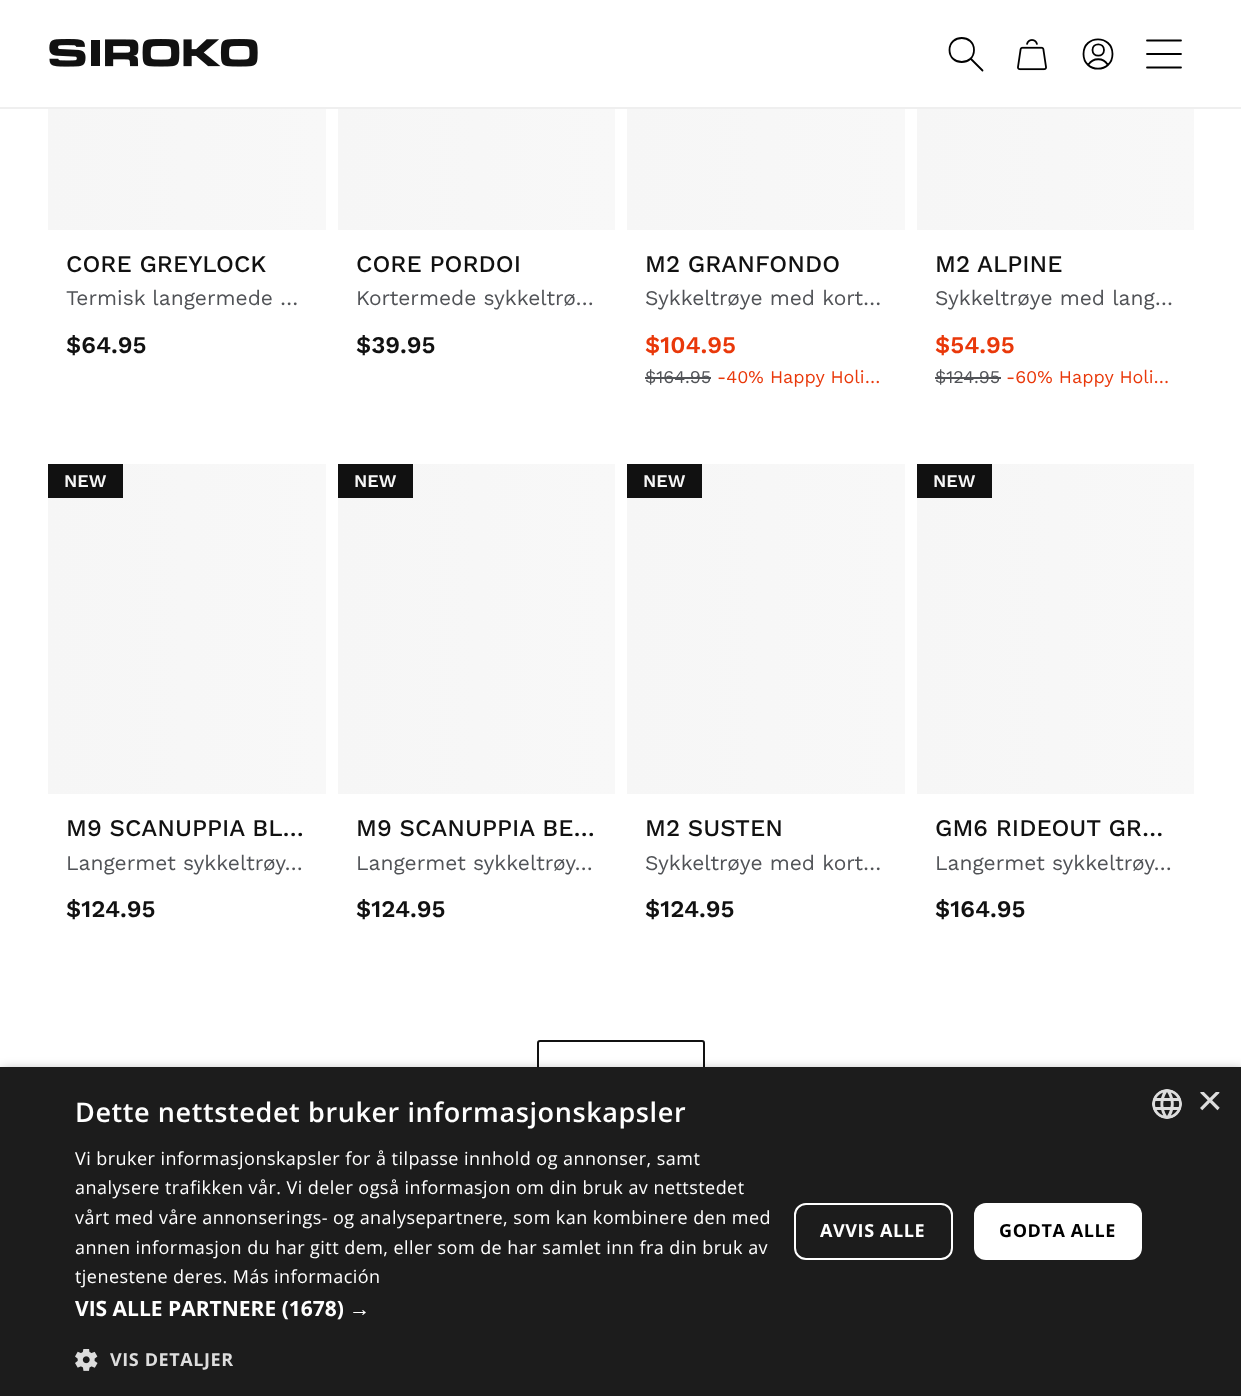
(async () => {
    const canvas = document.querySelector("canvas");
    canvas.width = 1241;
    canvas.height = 1396;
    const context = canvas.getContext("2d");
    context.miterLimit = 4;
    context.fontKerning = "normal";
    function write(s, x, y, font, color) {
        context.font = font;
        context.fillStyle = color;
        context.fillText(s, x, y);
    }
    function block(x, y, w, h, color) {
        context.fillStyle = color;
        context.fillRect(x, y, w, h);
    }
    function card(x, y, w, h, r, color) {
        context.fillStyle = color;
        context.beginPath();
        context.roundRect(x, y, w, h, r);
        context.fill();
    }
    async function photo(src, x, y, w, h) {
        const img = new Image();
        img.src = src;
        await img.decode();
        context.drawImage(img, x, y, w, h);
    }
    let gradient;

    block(0, 0, 1241, 1396, "rgb(255, 255, 255)");
    block(0, 107, 1241, 2, "rgb(239, 239, 239)");
    await photo("media/1.png", 49, 39, 209, 28);
    context.beginPath();
    context.moveTo(982.5, 70.5);
    context.lineTo(970.5, 58.5);
    context.moveTo(974, 50);
    context.bezierCurveTo(974, 66, 949.5, 66, 949.5, 50);
    context.bezierCurveTo(949.5, 34, 974, 34, 974, 50);
    context.closePath();
    context.strokeStyle = "rgb(0, 0, 0)";
    context.lineWidth = 1.8;
    context.lineCap = "round";
    context.lineJoin = "round";
    context.stroke();
    await photo("media/2.png", 1017, 39, 30, 32);
    context.beginPath();
    context.moveTo(1088.5, 64.5);
    context.bezierCurveTo(1093, 57.5, 1103.5, 57.5, 1107.5, 64.5);
    context.moveTo(1104, 50);
    context.bezierCurveTo(1104, 57.5, 1092.5, 57.5, 1092.5, 50);
    context.bezierCurveTo(1092.5, 42.5, 1104, 42.5, 1104, 50);
    context.closePath();
    context.moveTo(1112.5, 54);
    context.bezierCurveTo(1112.5, 73.5, 1083.5, 73.5, 1083.5, 54);
    context.bezierCurveTo(1083.5, 34.5, 1112.5, 34.5, 1112.5, 54);
    context.closePath();
    context.stroke();
    context.beginPath();
    context.moveTo(1181, 40.5);
    context.lineTo(1147, 40.5);
    context.moveTo(1181, 54);
    context.lineTo(1147, 54);
    context.moveTo(1181, 67.5);
    context.lineTo(1147, 67.5);
    context.stroke();
    gradient = context.createLinearGradient(48, 65, 603, 64);
    gradient.addColorStop(0, "rgb(246, 246, 246)");
    gradient.addColorStop(1, "rgb(250, 250, 250)");
    context.fillStyle = gradient;
    context.fillRect(48, 109, 278, 121);
    write("CORE GREYLOCK", 66, 272, "500 24px Work Sans", "rgb(17, 17, 17)");
    write("Termisk langermede …", 66, 305, "21px Work Sans", "rgb(81, 83, 87)");
    write("$64.95", 66, 353, "600 24px Work Sans", "rgb(17, 17, 17)");
    gradient = context.createLinearGradient(338, 65, 893, 64);
    gradient.addColorStop(0, "rgb(246, 246, 246)");
    gradient.addColorStop(1, "rgb(250, 250, 250)");
    context.fillStyle = gradient;
    context.fillRect(338, 109, 277, 121);
    write("CORE PORDOI", 356, 272, "500 24px Work Sans", "rgb(17, 17, 17)");
    write("Kortermede sykkeltrø…", 356, 305, "21px Work Sans", "rgb(81, 83, 87)");
    write("$39.95", 356, 353, "600 24px Work Sans", "rgb(17, 17, 17)");
    gradient = context.createLinearGradient(627, 65, 1182, 64);
    gradient.addColorStop(0, "rgb(246, 246, 246)");
    gradient.addColorStop(1, "rgb(250, 250, 250)");
    context.fillStyle = gradient;
    context.fillRect(627, 109, 278, 121);
    write("M2 GRANFONDO", 645, 272, "500 24px Work Sans", "rgb(17, 17, 17)");
    write("Sykkeltrøye med kort…", 645, 305, "21px Work Sans", "rgb(81, 83, 87)");
    write("$104.95", 645, 353, "600 24px Work Sans", "rgb(233, 56, 10)");
    write("$164.95", 645, 383, "18px Work Sans", "rgb(81, 83, 87)");
    block(645, 377, 66, 2, "rgb(81, 83, 87)");
    write("-40% Happy Holi…", 717, 383, "18px Work Sans", "rgb(233, 56, 10)");
    gradient = context.createLinearGradient(917, 65, 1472, 64);
    gradient.addColorStop(0, "rgb(246, 246, 246)");
    gradient.addColorStop(1, "rgb(250, 250, 250)");
    context.fillStyle = gradient;
    context.fillRect(917, 109, 277, 121);
    write("M2 ALPINE", 935, 272, "500 24px Work Sans", "rgb(17, 17, 17)");
    write("Sykkeltrøye med lang…", 935, 305, "21px Work Sans", "rgb(81, 83, 87)");
    write("$54.95", 935, 353, "600 24px Work Sans", "rgb(233, 56, 10)");
    write("$124.95", 935, 383, "18px Work Sans", "rgb(81, 83, 87)");
    block(935, 377, 66, 2, "rgb(81, 83, 87)");
    write("-60% Happy Holi…", 1006, 383, "18px Work Sans", "rgb(233, 56, 10)");
    gradient = context.createLinearGradient(48, 629, 603, 629);
    gradient.addColorStop(0, "rgb(246, 246, 246)");
    gradient.addColorStop(1, "rgb(250, 250, 250)");
    context.fillStyle = gradient;
    context.fillRect(48, 464, 278, 330);
    block(48, 464, 75, 34, "rgb(17, 17, 17)");
    write("NEW", 64, 487, "600 18px Work Sans", "rgb(246, 246, 246)");
    write("M9 SCANUPPIA BL…", 66, 836, "500 24px Work Sans", "rgb(17, 17, 17)");
    write("Langermet sykkeltrøy…", 66, 870, "21px Work Sans", "rgb(81, 83, 87)");
    write("$124.95", 66, 917, "600 24px Work Sans", "rgb(17, 17, 17)");
    gradient = context.createLinearGradient(338, 629, 893, 629);
    gradient.addColorStop(0, "rgb(246, 246, 246)");
    gradient.addColorStop(1, "rgb(250, 250, 250)");
    context.fillStyle = gradient;
    context.fillRect(338, 464, 277, 330);
    block(338, 464, 75, 34, "rgb(17, 17, 17)");
    write("NEW", 354, 487, "600 18px Work Sans", "rgb(246, 246, 246)");
    write("M9 SCANUPPIA BE…", 356, 836, "500 24px Work Sans", "rgb(17, 17, 17)");
    write("Langermet sykkeltrøy…", 356, 870, "21px Work Sans", "rgb(81, 83, 87)");
    write("$124.95", 356, 917, "600 24px Work Sans", "rgb(17, 17, 17)");
    gradient = context.createLinearGradient(627, 629, 1182, 629);
    gradient.addColorStop(0, "rgb(246, 246, 246)");
    gradient.addColorStop(1, "rgb(250, 250, 250)");
    context.fillStyle = gradient;
    context.fillRect(627, 464, 278, 330);
    block(627, 464, 75, 34, "rgb(17, 17, 17)");
    write("NEW", 643, 487, "600 18px Work Sans", "rgb(246, 246, 246)");
    write("M2 SUSTEN", 645, 836, "500 24px Work Sans", "rgb(17, 17, 17)");
    write("Sykkeltrøye med kort…", 645, 870, "21px Work Sans", "rgb(81, 83, 87)");
    write("$124.95", 645, 917, "600 24px Work Sans", "rgb(17, 17, 17)");
    gradient = context.createLinearGradient(917, 629, 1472, 629);
    gradient.addColorStop(0, "rgb(246, 246, 246)");
    gradient.addColorStop(1, "rgb(250, 250, 250)");
    context.fillStyle = gradient;
    context.fillRect(917, 464, 277, 330);
    block(917, 464, 75, 34, "rgb(17, 17, 17)");
    write("NEW", 933, 487, "600 18px Work Sans", "rgb(246, 246, 246)");
    write("GM6 RIDEOUT GR…", 935, 836, "500 24px Work Sans", "rgb(17, 17, 17)");
    write("Langermet sykkeltrøy…", 935, 870, "21px Work Sans", "rgb(81, 83, 87)");
    write("$164.95", 935, 917, "600 24px Work Sans", "rgb(17, 17, 17)");
    context.beginPath();
    context.roundRect(538, 1041, 166, 73, 2);
    context.strokeStyle = "rgb(17, 17, 17)";
    context.lineWidth = 2;
    context.lineJoin = "miter";
    context.stroke();
    context.fillStyle = "rgba(0, 0, 0, 0.35)";
    context.filter = "blur(6px)";
    context.beginPath();
    context.rect(2, 1070, 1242, 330);
    context.fill();
    context.filter = "none";
    block(0, 1067, 1241, 329, "rgb(28, 28, 28)");
    context.letterSpacing = "0.6px";
    write("Dette nettstedet bruker informasjonskapsler", 75, 1122, "600 27px Open Sans", "rgb(255, 255, 255)");
    context.letterSpacing = "0.45px";
    write("Vi bruker informasjonskapsler for å tilpasse innhold og annonser, samt", 75, 1165, "18px Open Sans", "rgb(255, 255, 255)");
    write("analysere trafikken vår. Vi deler også informasjon om din bruk av nettstedet", 75, 1194, "18px Open Sans", "rgb(255, 255, 255)");
    write("vårt med våre annonserings- og analysepartnere, som kan kombinere den med", 75, 1224, "18px Open Sans", "rgb(255, 255, 255)");
    write("annen informasjon du har gitt dem, eller som de har samlet inn fra din bruk av", 75, 1254, "18px Open Sans", "rgb(255, 255, 255)");
    write("tjenestene deres. Más información", 75, 1283, "18px Open Sans", "rgb(255, 255, 255)");
    context.letterSpacing = "0px";
    write("VIS ALLE PARTNERE (1678)", 75, 1316, "bold 21px Open Sans", "rgb(255, 255, 255)");
    write("→", 349, 1316, "bold 21px Liberation Sans", "rgb(255, 255, 255)");
    await photo("media/3.png", 75, 1349, 23, 22);
    context.letterSpacing = "0.6px";
    write("VIS DETALJER", 110, 1366, "bold 18px Open Sans", "rgb(221, 221, 221)");
    context.beginPath();
    context.roundRect(795, 1204, 157, 55, 11);
    context.strokeStyle = "rgb(255, 255, 255)";
    context.stroke();
    write("AVVIS ALLE", 820, 1237, "bold 18px Open Sans", "rgb(255, 255, 255)");
    card(974, 1203, 168, 57, 12, "rgb(255, 255, 255)");
    write("GODTA ALLE", 999, 1237, "bold 18px Open Sans", "rgb(0, 0, 0)");
    await photo("media/4.png", 1152, 1089, 30, 30);
    context.save();
    context.beginPath();
    context.rect(1197, 1092, 23, 23);
    context.clip();
    context.letterSpacing = "0px";
    write("×", 1197, 1115, "44px Liberation Sans", "rgb(221, 221, 221)");
    context.restore();
})();
